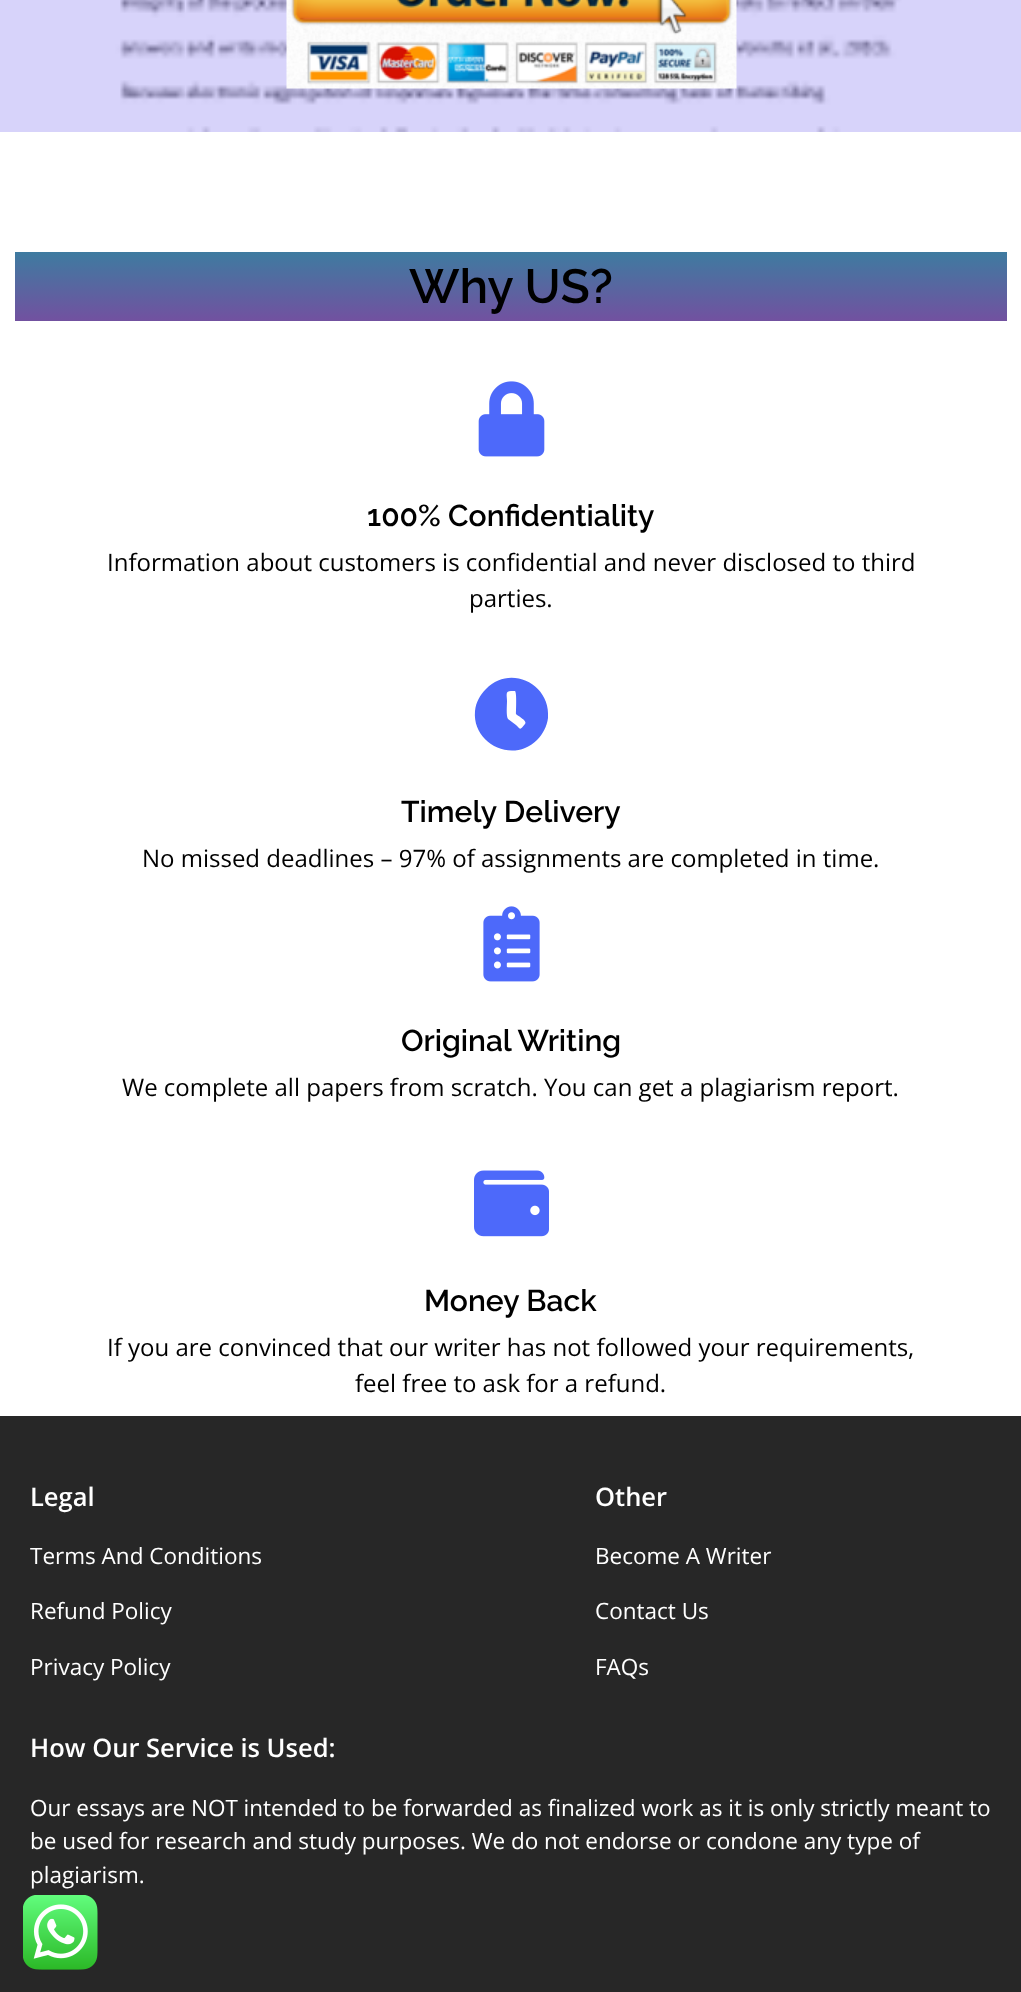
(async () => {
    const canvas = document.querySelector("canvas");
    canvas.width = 1021;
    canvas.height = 1992;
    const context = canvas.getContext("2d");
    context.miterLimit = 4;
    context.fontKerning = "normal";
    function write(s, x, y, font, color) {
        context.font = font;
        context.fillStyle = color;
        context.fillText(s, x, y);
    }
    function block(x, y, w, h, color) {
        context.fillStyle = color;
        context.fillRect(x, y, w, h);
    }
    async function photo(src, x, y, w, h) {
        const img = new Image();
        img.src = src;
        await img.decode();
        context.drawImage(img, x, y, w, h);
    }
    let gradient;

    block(0, 0, 1021, 1992, "rgb(255, 255, 255)");
    await photo("media/1.png", 0, 0, 1021, 132);
    await photo("media/2.png", 286, 0, 451, 89);
    gradient = context.createLinearGradient(511, 252, 511, 321);
    gradient.addColorStop(0, "rgb(62, 123, 160)");
    gradient.addColorStop(1, "rgb(114, 81, 160)");
    context.fillStyle = gradient;
    context.fillRect(15, 252, 992, 69);
    write("Why US?", 409, 303, "600 48px Raleway", "rgb(0, 0, 0)");
    await photo("media/3.png", 478, 381, 67, 76);
    write("100% Confidentiality", 367, 526, "600 30px Raleway", "rgb(0, 0, 0)");
    write("Information about customers is confidential and never disclosed to third", 107, 571, "24px Open Sans", "rgb(0, 0, 0)");
    write("parties.", 469, 607, "24px Open Sans", "rgb(0, 0, 0)");
    context.fillStyle = "rgb(77, 105, 250)";
    context.beginPath();
    context.moveTo(486, 689);
    context.bezierCurveTo(510, 664, 551, 684, 548, 718);
    context.bezierCurveTo(547, 726, 543, 734, 537, 740);
    context.bezierCurveTo(513, 764, 472, 744, 475, 711);
    context.bezierCurveTo(476, 702, 480, 695, 486, 689);
    context.closePath();
    context.moveTo(525, 724);
    context.bezierCurveTo(528, 721, 518, 716, 516, 714);
    context.bezierCurveTo(516, 711, 517, 693, 515, 691);
    context.lineTo(511, 691);
    context.bezierCurveTo(505, 691, 507, 695, 507, 701);
    context.bezierCurveTo(507, 705, 506, 716, 508, 719);
    context.lineTo(516, 725);
    context.bezierCurveTo(521, 730, 520, 730, 525, 724);
    context.closePath();
    context.fill();
    write("Timely Delivery", 401, 822, "600 30px Raleway", "rgb(0, 0, 0)");
    write("No missed deadlines – 97% of assignments are completed in time.", 142, 867, "24px Open Sans", "rgb(0, 0, 0)");
    await photo("media/4.png", 483, 906, 57, 76);
    write("Original Writing", 401, 1051, "600 30px Raleway", "rgb(0, 0, 0)");
    write("We complete all papers from scratch. You can get a plagiarism report.", 122, 1096, "24px Open Sans", "rgb(0, 0, 0)");
    await photo("media/5.png", 474, 1170, 75, 67);
    write("Money Back", 424, 1311, "600 30px Raleway", "rgb(0, 0, 0)");
    write("If you are convinced that our writer has not followed your requirements,", 107, 1356, "24px Open Sans", "rgb(0, 0, 0)");
    write("feel free to ask for a refund.", 355, 1392, "24px Open Sans", "rgb(0, 0, 0)");
    block(0, 1416, 1021, 576, "rgb(39, 39, 39)");
    write("Legal", 30, 1506, "600 25.5px Open Sans", "rgb(255, 255, 255)");
    write("Terms And Conditions", 30, 1564, "22.5px Open Sans", "rgb(255, 255, 255)");
    write("Refund Policy", 30, 1619, "22.5px Open Sans", "rgb(255, 255, 255)");
    write("Privacy Policy", 30, 1675, "22.5px Open Sans", "rgb(255, 255, 255)");
    write("Other", 595, 1506, "600 25.5px Open Sans", "rgb(255, 255, 255)");
    write("Become A Writer", 595, 1564, "22.5px Open Sans", "rgb(255, 255, 255)");
    write("Contact Us", 595, 1619, "22.5px Open Sans", "rgb(255, 255, 255)");
    write("FAQs", 595, 1675, "22.5px Open Sans", "rgb(255, 255, 255)");
    write("How Our Service is Used:", 30, 1757, "600 25.5px Open Sans", "rgb(255, 255, 255)");
    write("Our essays are NOT intended to be forwarded as finalized work as it is only strictly meant to", 30, 1816, "22.5px Open Sans", "rgb(255, 255, 255)");
    write("be used for research and study purposes. We do not endorse or condone any type of", 30, 1849, "22.5px Open Sans", "rgb(255, 255, 255)");
    write("plagiarism.", 30, 1883, "22.5px Open Sans", "rgb(255, 255, 255)");
    await photo("media/6.png", 23, 1895, 75, 75);
})();
